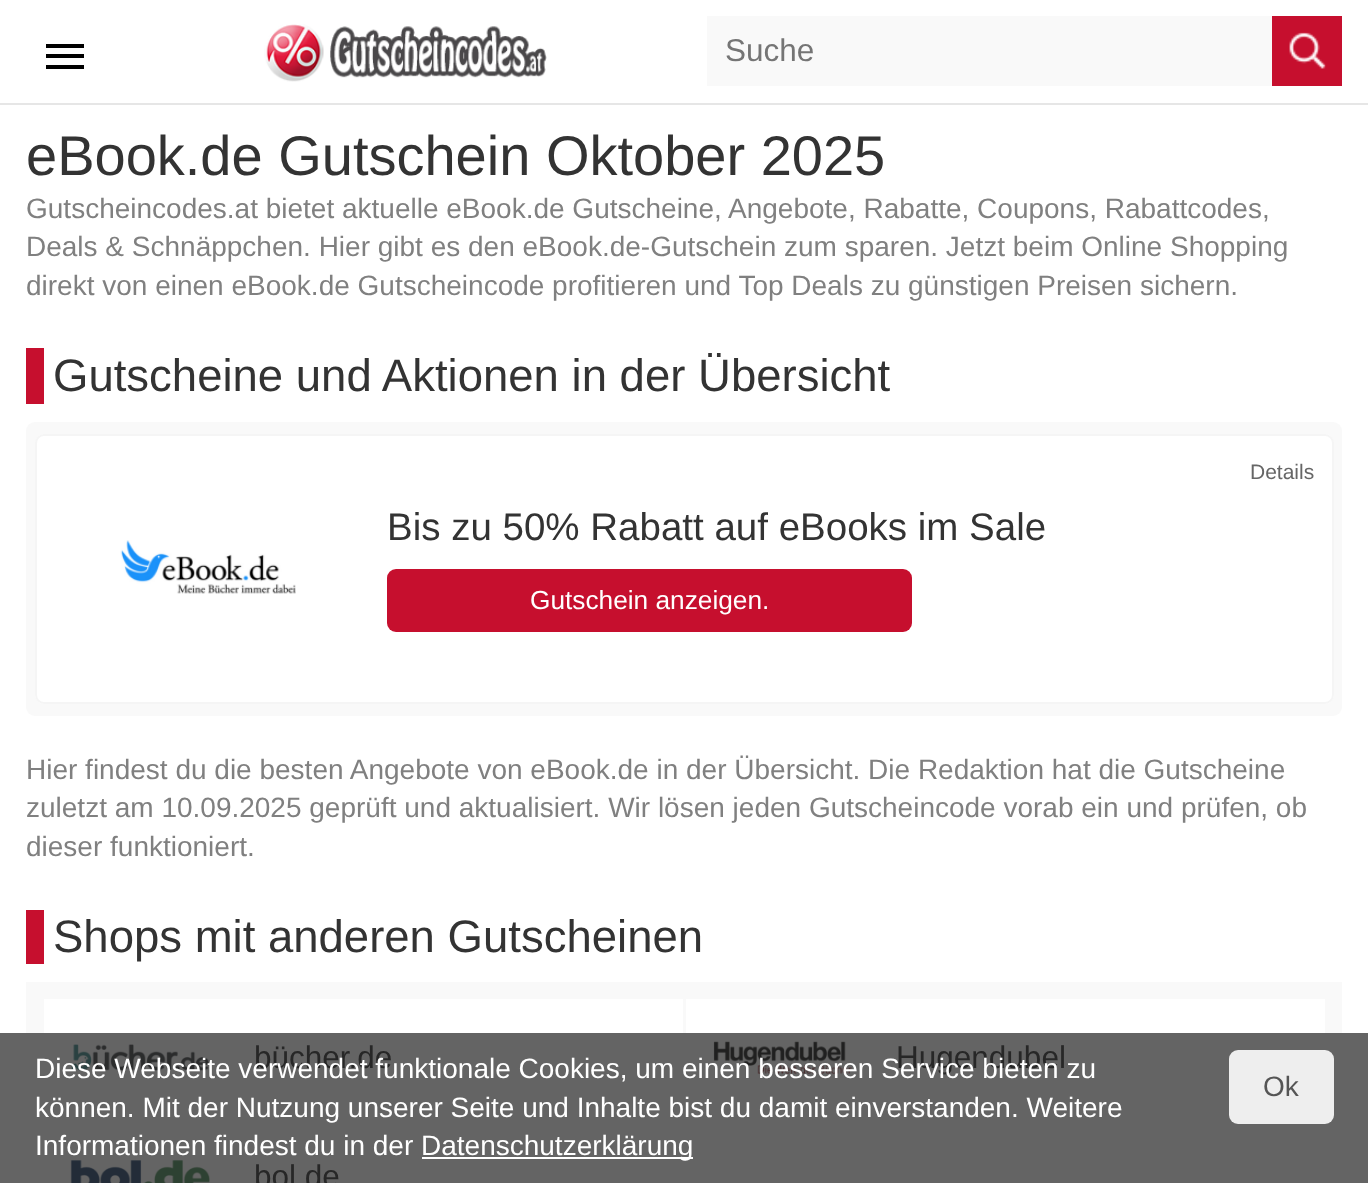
(async () => {
    const canvas = document.querySelector("canvas");
    canvas.width = 1368;
    canvas.height = 1183;
    const context = canvas.getContext("2d");
    context.miterLimit = 4;
    context.fontKerning = "normal";
    function write(s, x, y, font, color) {
        context.font = font;
        context.fillStyle = color;
        context.fillText(s, x, y);
    }
    function block(x, y, w, h, color) {
        context.fillStyle = color;
        context.fillRect(x, y, w, h);
    }
    function card(x, y, w, h, r, color) {
        context.fillStyle = color;
        context.beginPath();
        context.roundRect(x, y, w, h, r);
        context.fill();
    }
    async function photo(src, x, y, w, h) {
        const img = new Image();
        img.src = src;
        await img.decode();
        context.drawImage(img, x, y, w, h);
    }

    block(0, 0, 1368, 1183, "rgb(255, 255, 255)");
    block(0, 103, 1368, 2, "rgb(230, 230, 230)");
    block(46, 44, 38, 4, "rgb(0, 0, 0)");
    block(46, 54, 38, 4, "rgb(0, 0, 0)");
    block(46, 65, 38, 4, "rgb(0, 0, 0)");
    await photo("media/1.png", 264, 24, 283, 58);
    block(707, 16, 565, 70, "rgb(249, 249, 249)");
    write("Suche", 725, 61, "31.5px Liberation Sans", "rgb(117, 117, 117)");
    block(1272, 16, 70, 70, "rgb(198, 15, 46)");
    await photo("media/2.png", 1289, 32, 37, 37);
    block(0, 1033, 1368, 150, "rgb(100, 100, 100)");
    write("eBook.de Gutschein Oktober 2025", 26, 175, "56px Liberation Sans", "rgb(51, 51, 51)");
    write("Gutscheincodes.at bietet aktuelle eBook.de Gutscheine, Angebote, Rabatte, Coupons, Rabattcodes,", 26, 218, "28px Liberation Sans", "rgb(128, 128, 128)");
    write("Deals & Schnäppchen. Hier gibt es den eBook.de-Gutschein zum sparen. Jetzt beim Online Shopping", 26, 256, "28px Liberation Sans", "rgb(128, 128, 128)");
    write("direkt von einen eBook.de Gutscheincode profitieren und Top Deals zu günstigen Preisen sichern.", 26, 295, "28px Liberation Sans", "rgb(128, 128, 128)");
    block(26, 348, 18, 56, "rgb(198, 15, 46)");
    write("Gutscheine und Aktionen in der Übersicht", 53, 391, "45.5px Liberation Sans", "rgb(51, 51, 51)");
    card(26, 422, 1316, 294, 9, "rgb(249, 249, 249)");
    card(35, 434, 1299, 270, 9, "rgb(255, 255, 255)");
    await photo("media/3.png", 120, 540, 176, 54);
    context.beginPath();
    context.roundRect(36, 435, 1297, 268, 8);
    context.strokeStyle = "rgb(245, 245, 245)";
    context.lineWidth = 2;
    context.stroke();
    write("Details", 1250, 479, "21px Liberation Sans", "rgb(102, 102, 102)");
    write("Bis zu 50% Rabatt auf eBooks im Sale", 387, 540, "38.5px Liberation Sans", "rgb(51, 51, 51)");
    card(387, 569, 525, 63, 9, "rgb(198, 15, 46)");
    write("Gutschein anzeigen.", 530, 609, "26.25px Liberation Sans", "rgb(255, 255, 255)");
    write("Hier findest du die besten Angebote von eBook.de in der Übersicht. Die Redaktion hat die Gutscheine", 26, 779, "28px Liberation Sans", "rgb(128, 128, 128)");
    write("zuletzt am 10.09.2025 geprüft und aktualisiert. Wir lösen jeden Gutscheincode vorab ein und prüfen, ob", 26, 817, "28px Liberation Sans", "rgb(128, 128, 128)");
    write("dieser funktioniert.", 26, 856, "28px Liberation Sans", "rgb(128, 128, 128)");
    block(26, 910, 18, 54, "rgb(198, 15, 46)");
    write("Shops mit anderen Gutscheinen", 53, 952, "45.5px Liberation Sans", "rgb(51, 51, 51)");
    block(26, 982, 1316, 51, "rgb(249, 249, 249)");
    block(44, 999, 639, 34, "rgb(255, 255, 255)");
    await photo("media/4.png", 71, 1044, 139, 27);
    write("bücher.de", 254, 1068, "31.5px Liberation Sans", "rgb(39, 39, 39)");
    block(686, 999, 639, 34, "rgb(255, 255, 255)");
    await photo("media/5.png", 713, 1041, 140, 34);
    write("Hugendubel", 896, 1068, "31.5px Liberation Sans", "rgb(39, 39, 39)");
    await photo("media/6.png", 70, 1160, 140, 23);
    write("bol.de", 254, 1187, "31.5px Liberation Sans", "rgb(39, 39, 39)");
    write("Diese Webseite verwendet funktionale Cookies, um einen besseren Service bieten zu", 35, 1078, "28px Liberation Sans", "rgb(255, 255, 255)");
    write("können. Mit der Nutzung unserer Seite und Inhalte bist du damit einverstanden. Weitere", 35, 1117, "28px Liberation Sans", "rgb(255, 255, 255)");
    write("Informationen findest du in der", 35, 1155, "28px Liberation Sans", "rgb(255, 255, 255)");
    block(422, 1157, 271, 2, "rgb(255, 255, 255)");
    write("Datenschutzerklärung", 421, 1155, "28px Liberation Sans", "rgb(255, 255, 255)");
    card(1229, 1050, 105, 74, 9, "rgb(238, 238, 238)");
    write("Ok", 1263, 1096, "28px Liberation Sans", "rgb(85, 85, 85)");
})();
